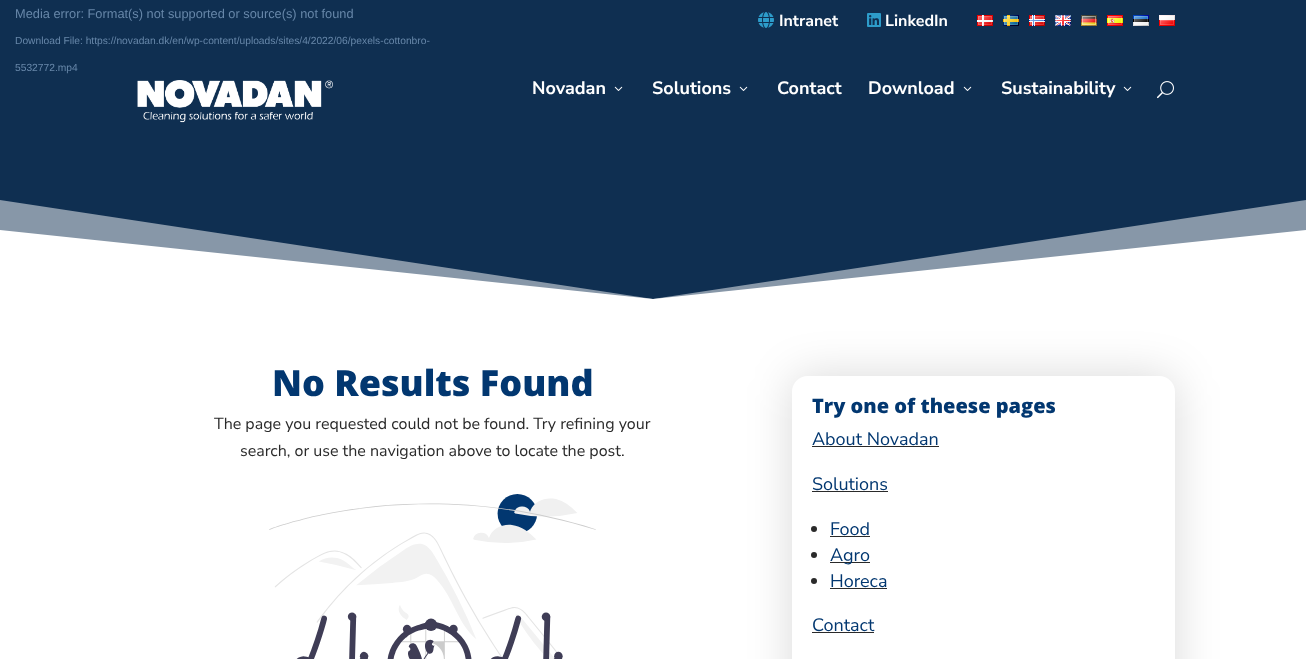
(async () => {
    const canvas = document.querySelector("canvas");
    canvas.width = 1306;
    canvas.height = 659;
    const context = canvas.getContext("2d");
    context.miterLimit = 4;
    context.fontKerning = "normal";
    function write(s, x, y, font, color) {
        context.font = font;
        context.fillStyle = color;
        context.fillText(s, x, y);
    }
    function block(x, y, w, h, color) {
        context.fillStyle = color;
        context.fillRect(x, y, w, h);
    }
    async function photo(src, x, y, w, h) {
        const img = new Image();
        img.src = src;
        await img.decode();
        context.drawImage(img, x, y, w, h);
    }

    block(0, 0, 1306, 659, "rgb(255, 255, 255)");
    block(0, 0, 1306, 299, "rgb(15, 47, 81)");
    write("Media error: Format(s) not supported or source(s) not found", 15, 18, "12.8px Liberation Sans", "rgb(103, 135, 169)");
    write("Download File: https://novadan.dk/en/wp-content/uploads/sites/4/2022/06/pexels-cottonbro-", 15, 44, "10.25px Liberation Sans", "rgb(103, 135, 169)");
    write("5532772.mp4", 15, 71, "10.25px Liberation Sans", "rgb(103, 135, 169)");
    context.fillStyle = "rgb(135, 151, 168)";
    context.beginPath();
    context.moveTo(653, 299);
    context.lineTo(0, 200);
    context.lineTo(0, 300);
    context.lineTo(1306, 300);
    context.lineTo(1306, 200);
    context.closePath();
    context.fill();
    context.fillStyle = "rgb(255, 255, 255)";
    context.beginPath();
    context.moveTo(653, 299);
    context.lineTo(0, 230);
    context.lineTo(0, 300);
    context.lineTo(1306, 300);
    context.lineTo(1306, 230);
    context.closePath();
    context.fill();
    write("No Results Found", 272, 396, "800 36px Open Sans", "rgb(2, 55, 112)");
    write("The page you requested could not be found. Try refining your", 214, 429, "16px Nunito Sans", "rgb(42, 42, 42)");
    write("search, or use the navigation above to locate the post.", 240, 456, "16px Nunito Sans", "rgb(42, 42, 42)");
    await photo("media/1.png", 269, 494, 327, 165);
    context.save();
    context.beginPath();
    context.moveTo(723, 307);
    context.lineTo(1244, 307);
    context.lineTo(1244, 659);
    context.lineTo(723, 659);
    context.closePath();
    context.moveTo(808, 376);
    context.lineTo(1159, 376);
    context.bezierCurveTo(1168, 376, 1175, 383, 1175, 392);
    context.lineTo(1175, 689);
    context.bezierCurveTo(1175, 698, 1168, 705, 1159, 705);
    context.lineTo(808, 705);
    context.bezierCurveTo(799, 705, 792, 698, 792, 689);
    context.lineTo(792, 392);
    context.bezierCurveTo(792, 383, 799, 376, 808, 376);
    context.closePath();
    context.clip("evenodd");
    context.fillStyle = "rgba(0, 0, 0, 0.15)";
    context.filter = "blur(22.5px)";
    context.beginPath();
    context.roundRect(792, 376, 383, 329, 16);
    context.fill();
    context.filter = "none";
    context.restore();
    write("Try one of theese pages", 812, 413, "800 20px Open Sans", "rgb(2, 55, 112)");
    write("About Novadan", 812, 445, "18px Nunito Sans", "rgb(2, 55, 112)");
    block(812, 446, 127, 1, "rgb(42, 42, 42)");
    write("Solutions", 812, 490, "18px Nunito Sans", "rgb(2, 55, 112)");
    block(812, 491, 76, 1, "rgb(42, 42, 42)");
    context.beginPath();
    context.arc(814, 529, 3, 0, Math.PI * 2);
    context.fill();
    write("Food", 830, 535, "18px Nunito Sans", "rgb(2, 55, 112)");
    block(830, 536, 40, 1, "rgb(42, 42, 42)");
    context.beginPath();
    context.arc(814, 555, 3, 0, Math.PI * 2);
    context.fill();
    block(830, 562, 40, 1, "rgb(42, 42, 42)");
    write("Agro", 830, 561, "18px Nunito Sans", "rgb(2, 55, 112)");
    context.fillStyle = "rgb(42, 42, 42)";
    context.beginPath();
    context.arc(814, 581, 3, 0, Math.PI * 2);
    context.fill();
    write("Horeca", 830, 587, "18px Nunito Sans", "rgb(2, 55, 112)");
    block(830, 588, 57, 1, "rgb(42, 42, 42)");
    write("Contact", 812, 631, "18px Nunito Sans", "rgb(2, 55, 112)");
    block(812, 632, 62, 1, "rgb(42, 42, 42)");
    await photo("media/2.png", 758, 12, 16, 16);
    write("Intranet", 779, 26, "bold 16px Nunito Sans", "rgb(255, 255, 255)");
    await photo("media/3.png", 867, 13, 14, 14);
    write("LinkedIn", 885, 26, "bold 16px Nunito Sans", "rgb(255, 255, 255)");
    await photo("media/4.png", 977, 15, 16, 11);
    await photo("media/5.png", 1003, 15, 16, 11);
    await photo("media/6.png", 1029, 15, 16, 11);
    await photo("media/7.png", 1055, 15, 16, 11);
    await photo("media/8.png", 1081, 15, 16, 11);
    await photo("media/9.png", 1107, 15, 16, 11);
    await photo("media/10.png", 1133, 15, 16, 11);
    await photo("media/11.png", 1159, 15, 16, 11);
    await photo("media/12.png", 137, 80, 196, 43);
    write("Novadan", 532, 94, "bold 18px Nunito Sans", "rgb(255, 255, 255)");
    await photo("media/13.png", 614, 86, 9, 5);
    write("Solutions", 652, 94, "bold 18px Nunito Sans", "rgb(255, 255, 255)");
    await photo("media/13.png", 739, 86, 9, 5);
    write("Contact", 777, 94, "bold 18px Nunito Sans", "rgb(255, 255, 255)");
    write("Download", 868, 94, "bold 18px Nunito Sans", "rgb(255, 255, 255)");
    await photo("media/13.png", 963, 86, 9, 5);
    write("Sustainability", 1001, 94, "bold 18px Nunito Sans", "rgb(255, 255, 255)");
    await photo("media/13.png", 1123, 86, 9, 5);
    await photo("media/14.png", 1157, 81, 17, 18);
})();
